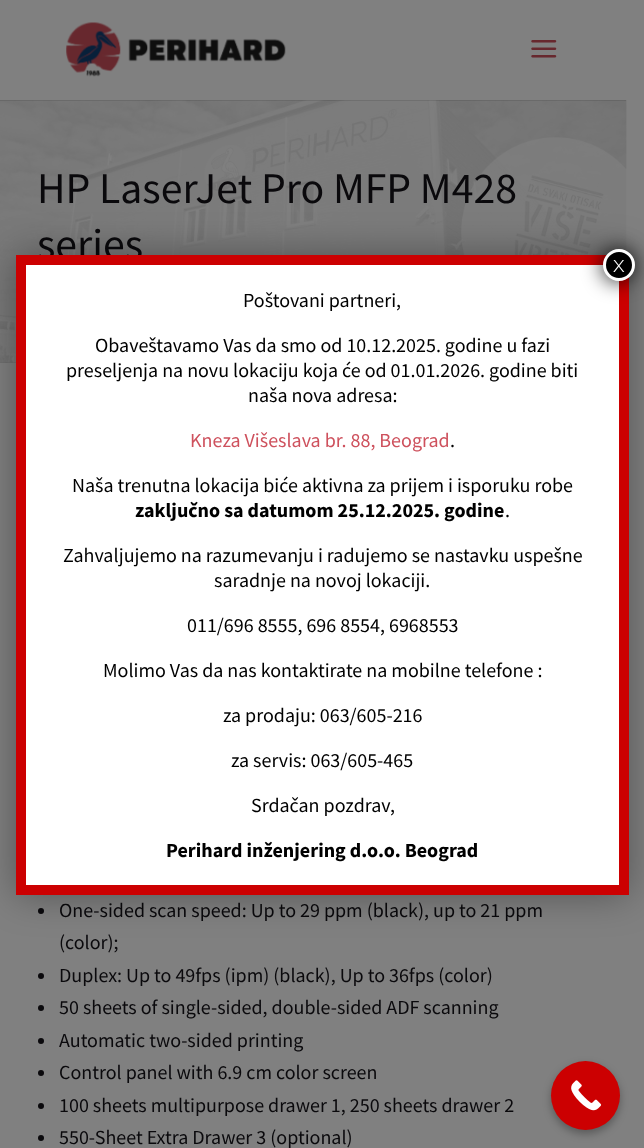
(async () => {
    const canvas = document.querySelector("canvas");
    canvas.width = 644;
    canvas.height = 1148;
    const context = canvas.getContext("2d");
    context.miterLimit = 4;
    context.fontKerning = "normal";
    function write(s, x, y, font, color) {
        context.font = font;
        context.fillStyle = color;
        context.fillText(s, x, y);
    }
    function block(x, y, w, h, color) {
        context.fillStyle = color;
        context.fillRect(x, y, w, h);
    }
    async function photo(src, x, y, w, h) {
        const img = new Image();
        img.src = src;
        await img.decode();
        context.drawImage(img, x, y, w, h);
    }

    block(0, 0, 644, 1148, "rgb(128, 128, 128)");
    block(0, 362, 16, 1, "rgb(109, 109, 109)");
    await photo("media/3.png", 0, 100, 627, 263);
    block(0, 100, 626, 1, "rgba(0, 0, 0, 0.1)");
    await photo("media/1.png", 66, 22, 220, 55);
    await photo("media/2.png", 531, 40, 26, 18);
    write("HP LaserJet Pro MFP M428", 37, 203, "43.75px Source Sans Pro", "rgb(10, 9, 12)");
    write("series", 37, 259, "43.75px Source Sans Pro", "rgb(10, 9, 12)");
    context.beginPath();
    context.arc(41, 911, 3, 0, Math.PI * 2);
    context.fill();
    write("One-sided scan speed: Up to 29 ppm (black), up to 21 ppm", 59, 917, "20px Source Sans Pro", "rgb(10, 9, 12)");
    write("(color);", 59, 949, "20px Source Sans Pro", "rgb(10, 9, 12)");
    context.beginPath();
    context.arc(41, 976, 3, 0, Math.PI * 2);
    context.fill();
    write("Duplex: Up to 49fps (ipm) (black), Up to 36fps (color)", 59, 982, "20px Source Sans Pro", "rgb(10, 9, 12)");
    context.beginPath();
    context.arc(41, 1008, 3, 0, Math.PI * 2);
    context.fill();
    write("50 sheets of single-sided, double-sided ADF scanning", 59, 1014, "20px Source Sans Pro", "rgb(10, 9, 12)");
    context.beginPath();
    context.arc(41, 1041, 3, 0, Math.PI * 2);
    context.fill();
    write("Automatic two-sided printing", 59, 1047, "20px Source Sans Pro", "rgb(10, 9, 12)");
    context.beginPath();
    context.arc(41, 1073, 3, 0, Math.PI * 2);
    context.fill();
    write("Control panel with 6.9 cm color screen", 59, 1079, "20px Source Sans Pro", "rgb(10, 9, 12)");
    context.beginPath();
    context.arc(41, 1106, 3, 0, Math.PI * 2);
    context.fill();
    write("100 sheets multipurpose drawer 1, 250 sheets drawer 2", 59, 1112, "20px Source Sans Pro", "rgb(10, 9, 12)");
    context.beginPath();
    context.arc(41, 1138, 3, 0, Math.PI * 2);
    context.fill();
    write("550-Sheet Extra Drawer 3 (optional)", 59, 1144, "20px Source Sans Pro", "rgb(10, 9, 12)");
    context.fillStyle = "rgba(2, 2, 2, 0.35)";
    context.filter = "blur(19px)";
    context.beginPath();
    context.roundRect(16, 255, 613, 640, 4);
    context.fill();
    context.filter = "none";
    block(26, 265, 593, 620, "rgb(255, 255, 255)");
    context.beginPath();
    context.moveTo(21, 260);
    context.lineTo(624, 260);
    context.lineTo(624, 890);
    context.lineTo(21, 890);
    context.closePath();
    context.strokeStyle = "rgb(204, 0, 1)";
    context.lineWidth = 10;
    context.stroke();
    context.fillStyle = "rgba(2, 2, 2, 0.75)";
    context.filter = "blur(9.5px)";
    context.beginPath();
    context.roundRect(601, 248, 35, 35, 17.5);
    context.fill();
    context.filter = "none";
    context.fillStyle = "rgb(0, 0, 0)";
    context.beginPath();
    context.arc(619, 265, 14.5, 0, Math.PI * 2);
    context.fill();
    context.strokeStyle = "rgb(255, 255, 255)";
    context.lineWidth = 3;
    context.stroke();
    write("x", 613, 272, "bold 22px Montserrat", "rgb(255, 255, 255)");
    write("Poštovani partneri,", 243, 307, "20px Source Sans Pro", "rgb(0, 0, 0)");
    write("Obaveštavamo Vas da smo od 10.12.2025. godine u fazi", 95, 352, "20px Source Sans Pro", "rgb(0, 0, 0)");
    write("preseljenja na novu lokaciju koja će od 01.01.2026. godine biti", 66, 377, "20px Source Sans Pro", "rgb(0, 0, 0)");
    write("naša nova adresa:", 248, 402, "20px Source Sans Pro", "rgb(0, 0, 0)");
    write("Kneza Višeslava br. 88, Beograd", 190, 447, "20px Source Sans Pro", "rgb(206, 81, 93)");
    write(".", 450, 447, "20px Source Sans Pro", "rgb(0, 0, 0)");
    write("Naša trenutna lokacija biće aktivna za prijem i isporuku robe", 72, 492, "20px Source Sans Pro", "rgb(0, 0, 0)");
    write("zaključno sa datumom 25.12.2025. godine", 135, 517, "bold 20px Source Sans Pro", "rgb(0, 0, 0)");
    write(".", 505, 517, "20px Source Sans Pro", "rgb(0, 0, 0)");
    write("Zahvaljujemo na razumevanju i radujemo se nastavku uspešne", 63, 562, "20px Source Sans Pro", "rgb(0, 0, 0)");
    write("saradnje na novoj lokaciji.", 214, 587, "20px Source Sans Pro", "rgb(0, 0, 0)");
    write("011/696 8555, 696 8554, 6968553", 187, 632, "20px Source Sans Pro", "rgb(0, 0, 0)");
    write("Molimo Vas da nas kontaktirate na mobilne telefone :", 103, 677, "20px Source Sans Pro", "rgb(0, 0, 0)");
    write("za prodaju: 063/605-216", 223, 722, "20px Source Sans Pro", "rgb(0, 0, 0)");
    write("za servis: 063/605-465", 231, 767, "20px Source Sans Pro", "rgb(0, 0, 0)");
    write("Srdačan pozdrav,", 251, 812, "20px Source Sans Pro", "rgb(0, 0, 0)");
    write("Perihard inženjering d.o.o. Beograd", 166, 857, "bold 20px Source Sans Pro", "rgb(0, 0, 0)");
    context.fillStyle = "rgba(0, 0, 0, 0.3)";
    context.filter = "blur(4px)";
    context.beginPath();
    context.roundRect(551, 1065, 69, 69, 34.5);
    context.fill();
    context.filter = "none";
    context.fillStyle = "rgb(204, 0, 1)";
    context.beginPath();
    context.arc(585.5, 1095.5, 34.5, 0, Math.PI * 2);
    context.fill();
    await photo("media/4.png", 571, 1080, 31, 31);
})();
